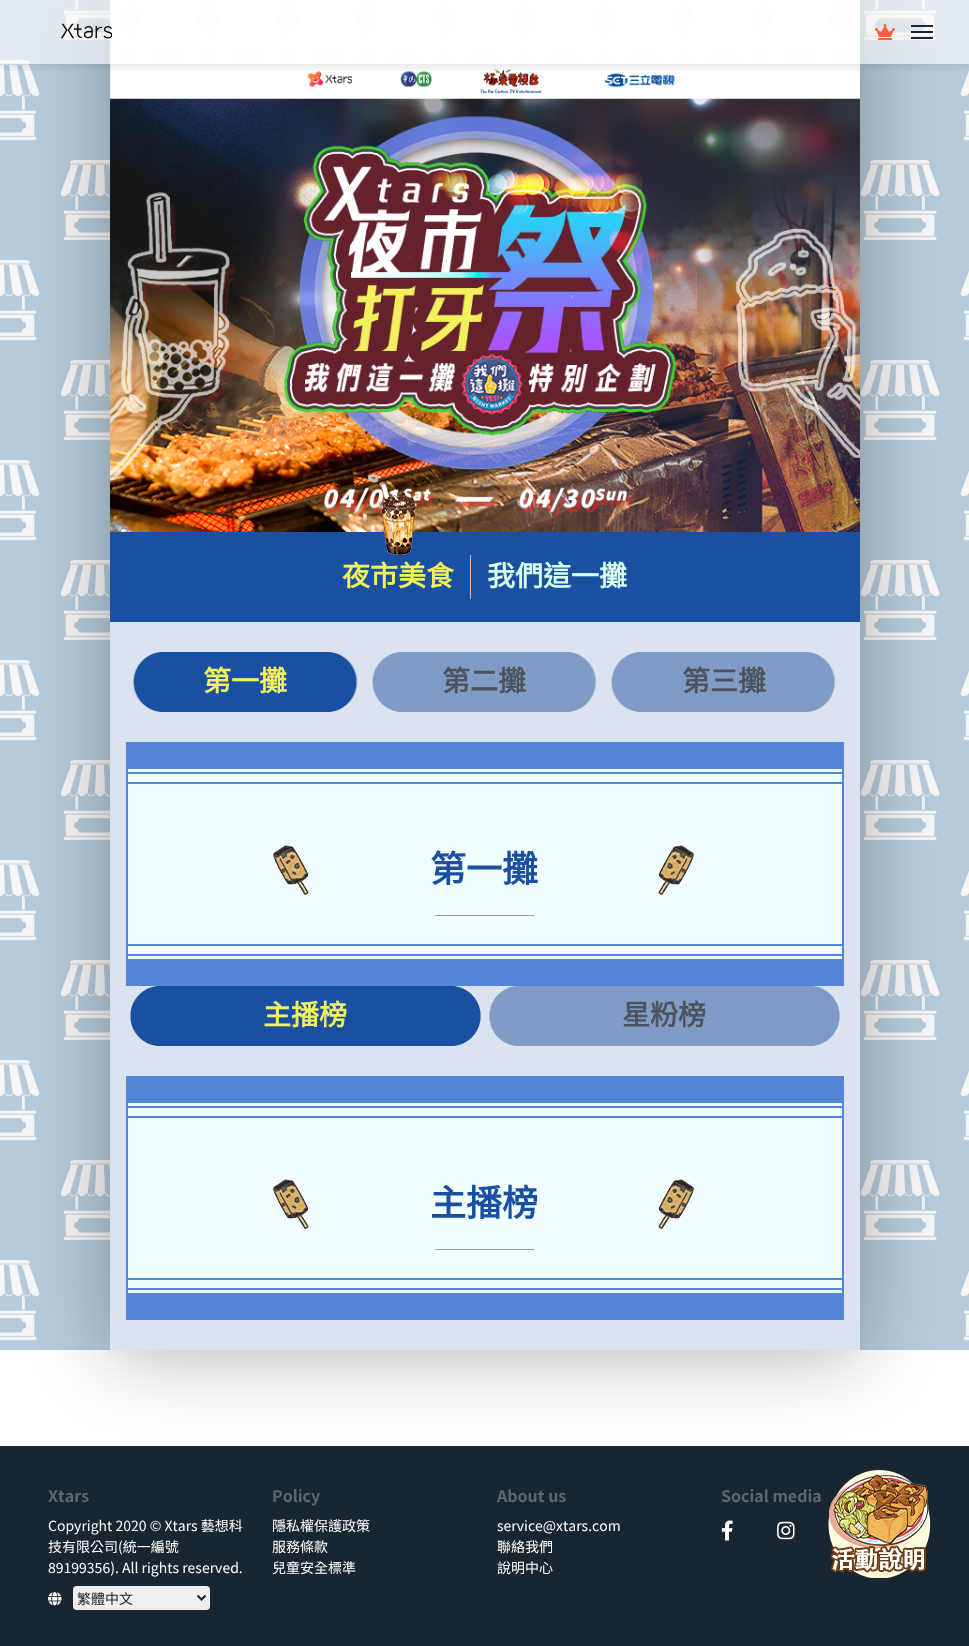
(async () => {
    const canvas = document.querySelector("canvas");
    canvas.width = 969;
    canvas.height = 1646;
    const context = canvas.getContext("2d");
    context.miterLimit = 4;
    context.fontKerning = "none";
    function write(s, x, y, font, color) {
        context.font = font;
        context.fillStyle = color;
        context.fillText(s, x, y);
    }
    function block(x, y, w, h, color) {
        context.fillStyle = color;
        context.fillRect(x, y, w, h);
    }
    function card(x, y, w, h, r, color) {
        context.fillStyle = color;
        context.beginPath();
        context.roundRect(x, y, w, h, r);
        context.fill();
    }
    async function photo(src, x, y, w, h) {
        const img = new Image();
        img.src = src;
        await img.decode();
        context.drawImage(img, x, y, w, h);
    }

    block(0, 0, 969, 1646, "rgb(255, 255, 255)");
    block(0, 0, 969, 1350, "rgb(240, 240, 240)");
    await photo("media/3.png", 0, 0, 969, 1350);
    context.fillStyle = "rgba(0, 0, 0, 0.3)";
    context.filter = "blur(40px)";
    context.beginPath();
    context.rect(110, 4, 750, 1350);
    context.fill();
    context.filter = "none";
    await photo("media/4.png", 110, 0, 750, 64);
    await photo("media/5.png", 110, 64, 750, 468);
    context.save();
    context.beginPath();
    context.rect(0, 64, 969, 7);
    context.clip();
    context.fillStyle = "rgba(51, 51, 51, 0.1)";
    context.filter = "blur(4px)";
    context.beginPath();
    context.rect(0, 4, 969, 64);
    context.fill();
    context.filter = "none";
    context.restore();
    block(0, 0, 969, 64, "rgba(255, 255, 255, 0.6)");
    await photo("media/1.png", 61, 23, 51, 16);
    await photo("media/2.png", 875, 24, 20, 16);
    block(911, 25, 22, 2, "rgb(23, 38, 48)");
    block(911, 31, 22, 2, "rgb(23, 38, 48)");
    block(911, 37, 22, 2, "rgb(23, 38, 48)");
    block(110, 622, 750, 728, "rgb(219, 227, 240)");
    block(110, 532, 750, 90, "rgb(26, 80, 161)");
    await photo("media/6.png", 379, 483, 38, 72);
    block(470, 555, 1, 44, "rgb(227, 179, 176)");
    write("夜市美食", 342, 586, "bold 28px Noto Sans CJK TC", "rgb(242, 240, 92)");
    write("我們這一攤", 487, 586, "bold 28px Noto Sans CJK TC", "rgb(216, 255, 236)");
    block(0, 1446, 969, 200, "rgb(23, 38, 48)");
    await photo("media/7.png", 828, 1469, 103, 109);
    await photo("media/8.png", 133, 652, 225, 60);
    write("第一攤", 203, 691, "bold 28px Noto Sans CJK TC", "rgb(242, 240, 92)");
    await photo("media/9.png", 372, 652, 225, 60);
    write("第二攤", 442, 691, "bold 28px Noto Sans CJK TC", "rgb(78, 84, 94)");
    await photo("media/9.png", 611, 652, 225, 60);
    write("第三攤", 682, 691, "bold 28px Noto Sans CJK TC", "rgb(78, 84, 94)");
    await photo("media/10.png", 126, 742, 718, 90);
    await photo("media/11.png", 126, 832, 718, 94);
    await photo("media/12.png", 273, 845, 421, 50);
    write("第一攤", 430, 882, "bold 36px Noto Sans CJK TC", "rgb(26, 80, 161)");
    block(435, 915, 99, 1, "rgb(133, 166, 208)");
    await photo("media/13.png", 126, 926, 718, 60);
    await photo("media/14.png", 130, 986, 351, 60);
    write("主播榜", 263, 1025, "bold 28px Noto Sans CJK TC", "rgb(242, 240, 92)");
    await photo("media/15.png", 489, 986, 351, 60);
    write("星粉榜", 622, 1025, "bold 28px Noto Sans CJK TC", "rgb(78, 84, 94)");
    await photo("media/10.png", 126, 1076, 718, 90);
    await photo("media/11.png", 126, 1166, 718, 94);
    await photo("media/12.png", 273, 1179, 421, 50);
    write("主播榜", 430, 1216, "bold 36px Noto Sans CJK TC", "rgb(26, 80, 161)");
    block(435, 1249, 99, 1, "rgb(133, 166, 208)");
    await photo("media/13.png", 126, 1260, 718, 60);
    write("Xtars", 48, 1502, "bold 16px Noto Sans TC", "rgb(93, 103, 110)");
    write("Copyright 2020 © Xtars 藝想科", 48, 1531, "14px Noto Sans TC", "rgb(255, 255, 255)");
    write("技有限公司(統一編號", 48, 1552, "14px Noto Sans TC", "rgb(255, 255, 255)");
    write("89199356). All rights reserved.", 48, 1573, "14px Noto Sans TC", "rgb(255, 255, 255)");
    await photo("media/16.png", 48, 1592, 14, 14);
    card(73, 1586, 137, 24, 4, "rgb(239, 239, 239)");
    context.beginPath();
    context.moveTo(197.5, 1595.5);
    context.lineTo(201.5, 1599.5);
    context.lineTo(205.5, 1595.5);
    context.strokeStyle = "rgb(34, 34, 34)";
    context.lineWidth = 2;
    context.stroke();
    write("繁體中文", 77, 1604, "14px Noto Sans TC", "rgb(34, 34, 34)");
    write("Policy", 272, 1502, "bold 16px Noto Sans TC", "rgb(93, 103, 110)");
    write("隱私權保護政策", 272, 1531, "14px Noto Sans TC", "rgb(255, 255, 255)");
    write("服務條款", 272, 1552, "14px Noto Sans TC", "rgb(255, 255, 255)");
    write("兒童安全標準", 272, 1573, "14px Noto Sans TC", "rgb(255, 255, 255)");
    write("About us", 497, 1502, "bold 16px Noto Sans TC", "rgb(93, 103, 110)");
    write("service@xtars.com", 497, 1531, "14px Noto Sans TC", "rgb(255, 255, 255)");
    write("聯絡我們", 497, 1552, "14px Noto Sans TC", "rgb(255, 255, 255)");
    write("說明中心", 497, 1573, "14px Noto Sans TC", "rgb(255, 255, 255)");
    write("Social media", 721, 1502, "bold 16px Noto Sans TC", "rgb(93, 103, 110)");
    await photo("media/17.png", 721, 1520, 12, 21);
    await photo("media/18.png", 777, 1521, 18, 19);
})();
